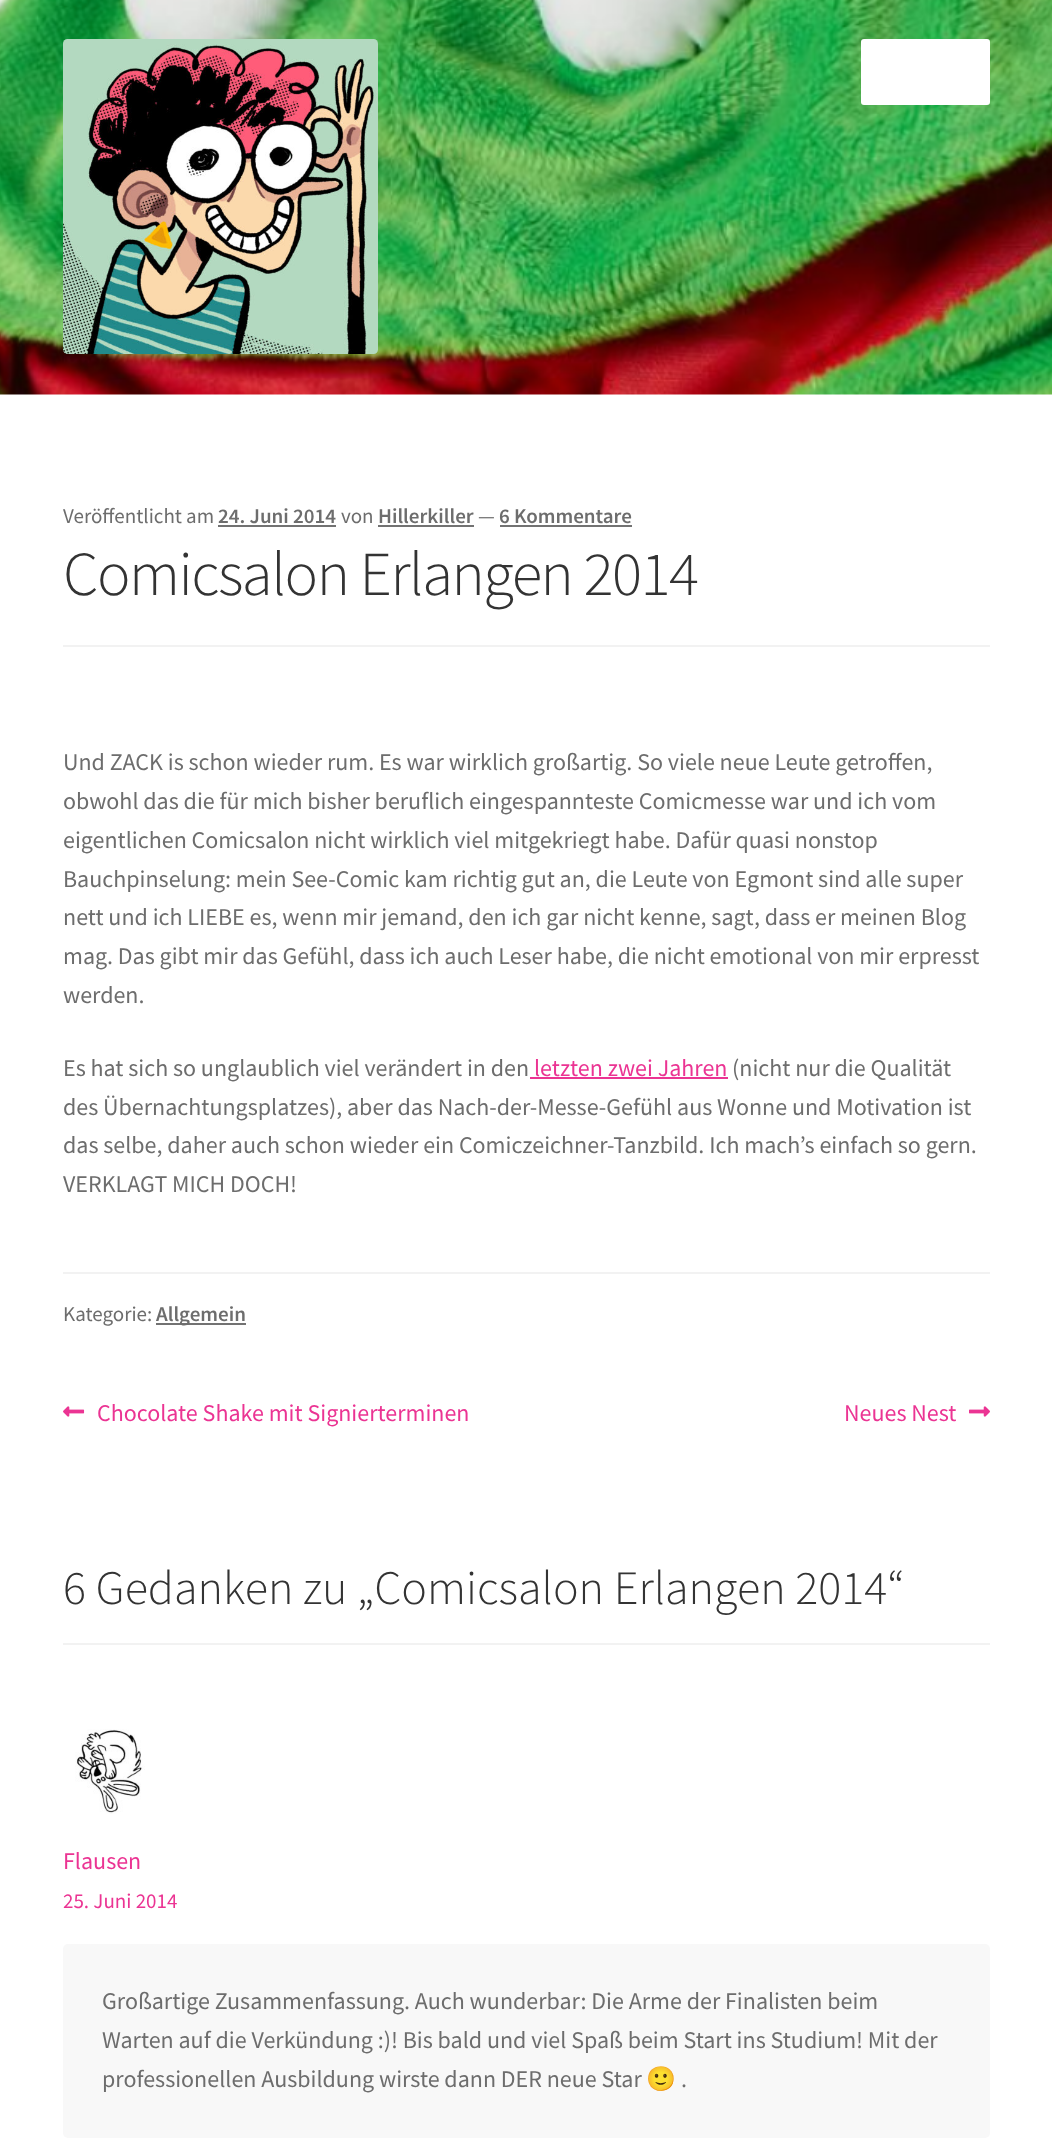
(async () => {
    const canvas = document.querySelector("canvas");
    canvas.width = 1052;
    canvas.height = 2140;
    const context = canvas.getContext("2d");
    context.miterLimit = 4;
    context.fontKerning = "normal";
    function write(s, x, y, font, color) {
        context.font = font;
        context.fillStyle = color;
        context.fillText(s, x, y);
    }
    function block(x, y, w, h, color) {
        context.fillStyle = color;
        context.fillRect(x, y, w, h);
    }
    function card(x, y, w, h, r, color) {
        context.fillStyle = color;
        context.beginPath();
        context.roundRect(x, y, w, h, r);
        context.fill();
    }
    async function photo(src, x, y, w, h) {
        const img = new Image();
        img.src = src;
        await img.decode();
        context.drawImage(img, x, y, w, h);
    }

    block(0, 0, 1052, 2140, "rgb(255, 255, 255)");
    await photo("media/1.png", 0, 0, 1052, 395);
    await photo("media/2.png", 63, 39, 315, 315);
    context.beginPath();
    context.roundRect(862.5, 40.5, 126, 63, 1.5);
    context.fill();
    context.strokeStyle = "rgb(255, 255, 255)";
    context.lineWidth = 3;
    context.stroke();
    block(63, 645, 927, 2, "rgb(242, 242, 242)");
    write("Veröffentlicht am", 63, 523, "21px Source Sans Pro", "rgb(109, 109, 109)");
    write("24. Juni 2014", 218, 523, "600 21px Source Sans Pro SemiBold", "rgb(109, 109, 109)");
    block(218, 525, 118, 2, "rgb(114, 114, 114)");
    write("von", 341, 523, "21px Source Sans Pro", "rgb(109, 109, 109)");
    write("Hillerkiller", 378, 523, "600 21px Source Sans Pro SemiBold", "rgb(109, 109, 109)");
    block(378, 525, 96, 2, "rgb(114, 114, 114)");
    write("—", 478, 523, "21px Source Sans Pro", "rgb(109, 109, 109)");
    write("6 Kommentare", 499, 523, "600 21px Source Sans Pro SemiBold", "rgb(109, 109, 109)");
    block(500, 525, 132, 2, "rgb(114, 114, 114)");
    context.letterSpacing = "-1.5px";
    write("Comicsalon Erlangen 2014", 63, 595, "300 62.75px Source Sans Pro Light", "rgb(51, 51, 51)");
    context.letterSpacing = "0px";
    write("Und ZACK is schon wieder rum. Es war wirklich großartig. So viele neue Leute getroffen,", 63, 770, "24px Source Sans Pro", "rgb(109, 109, 109)");
    write("obwohl das die für mich bisher beruflich eingespannteste Comicmesse war und ich vom", 63, 809, "24px Source Sans Pro", "rgb(109, 109, 109)");
    write("eigentlichen Comicsalon nicht wirklich viel mitgekriegt habe. Dafür quasi nonstop", 63, 848, "24px Source Sans Pro", "rgb(109, 109, 109)");
    write("Bauchpinselung: mein See-Comic kam richtig gut an, die Leute von Egmont sind alle super", 63, 887, "24px Source Sans Pro", "rgb(109, 109, 109)");
    write("nett und ich LIEBE es, wenn mir jemand, den ich gar nicht kenne, sagt, dass er meinen Blog", 63, 925, "24px Source Sans Pro", "rgb(109, 109, 109)");
    write("mag. Das gibt mir das Gefühl, dass ich auch Leser habe, die nicht emotional von mir erpresst", 63, 964, "24px Source Sans Pro", "rgb(109, 109, 109)");
    write("werden.", 63, 1003, "24px Source Sans Pro", "rgb(109, 109, 109)");
    write("Es hat sich so unglaublich viel verändert in den", 63, 1076, "24px Source Sans Pro", "rgb(109, 109, 109)");
    write("letzten zwei Jahren", 534, 1076, "24px Source Sans Pro", "rgb(235, 52, 147)");
    block(530, 1077, 198, 2, "rgb(235, 52, 147)");
    write("(nicht nur die Qualität", 732, 1076, "24px Source Sans Pro", "rgb(109, 109, 109)");
    write("des Übernachtungsplatzes), aber das Nach-der-Messe-Gefühl aus Wonne und Motivation ist", 63, 1115, "24px Source Sans Pro", "rgb(109, 109, 109)");
    write("das selbe, daher auch schon wieder ein Comiczeichner-Tanzbild. Ich mach’s einfach so gern.", 63, 1153, "24px Source Sans Pro", "rgb(109, 109, 109)");
    write("VERKLAGT MICH DOCH!", 63, 1192, "24px Source Sans Pro", "rgb(109, 109, 109)");
    block(63, 1272, 927, 2, "rgb(242, 242, 242)");
    write("Kategorie:", 63, 1321, "21px Source Sans Pro", "rgb(109, 109, 109)");
    block(156, 1323, 90, 2, "rgb(114, 114, 114)");
    write("Allgemein", 156, 1321, "600 21px Source Sans Pro SemiBold", "rgb(109, 109, 109)");
    await photo("media/3.png", 63, 1406, 22, 11);
    write("Chocolate Shake mit Signierterminen", 97, 1421, "24px Source Sans Pro", "rgb(235, 52, 147)");
    write("Neues Nest", 844, 1421, "24px Source Sans Pro", "rgb(235, 52, 147)");
    await photo("media/4.png", 969, 1406, 21, 11);
    block(63, 1643, 927, 2, "rgb(242, 242, 242)");
    write("6 Gedanken zu „Comicsalon Erlangen 2014“", 63, 1604, "300 48px Source Sans Pro Light", "rgb(51, 51, 51)");
    await photo("media/5.png", 75, 1729, 70, 85);
    write("Flausen", 63, 1869, "24px Source Sans Pro", "rgb(235, 52, 147)");
    write("25. Juni 2014", 63, 1908, "21px Source Sans Pro", "rgb(235, 52, 147)");
    card(63, 1944, 927, 194, 5, "rgb(248, 248, 248)");
    write("Großartige Zusammenfassung. Auch wunderbar: Die Arme der Finalisten beim", 102, 2009, "24px Source Sans Pro", "rgb(109, 109, 109)");
    write("Warten auf die Verkündung :)! Bis bald und viel Spaß beim Start ins Studium! Mit der", 102, 2048, "24px Source Sans Pro", "rgb(109, 109, 109)");
    write("professionellen Ausbildung wirste dann DER neue Star", 102, 2087, "24px Source Sans Pro", "rgb(109, 109, 109)");
    write("🙂", 646, 2087, "24px Noto Color Emoji", "rgb(109, 109, 109)");
    write(".", 681, 2087, "24px Source Sans Pro", "rgb(109, 109, 109)");
})();
